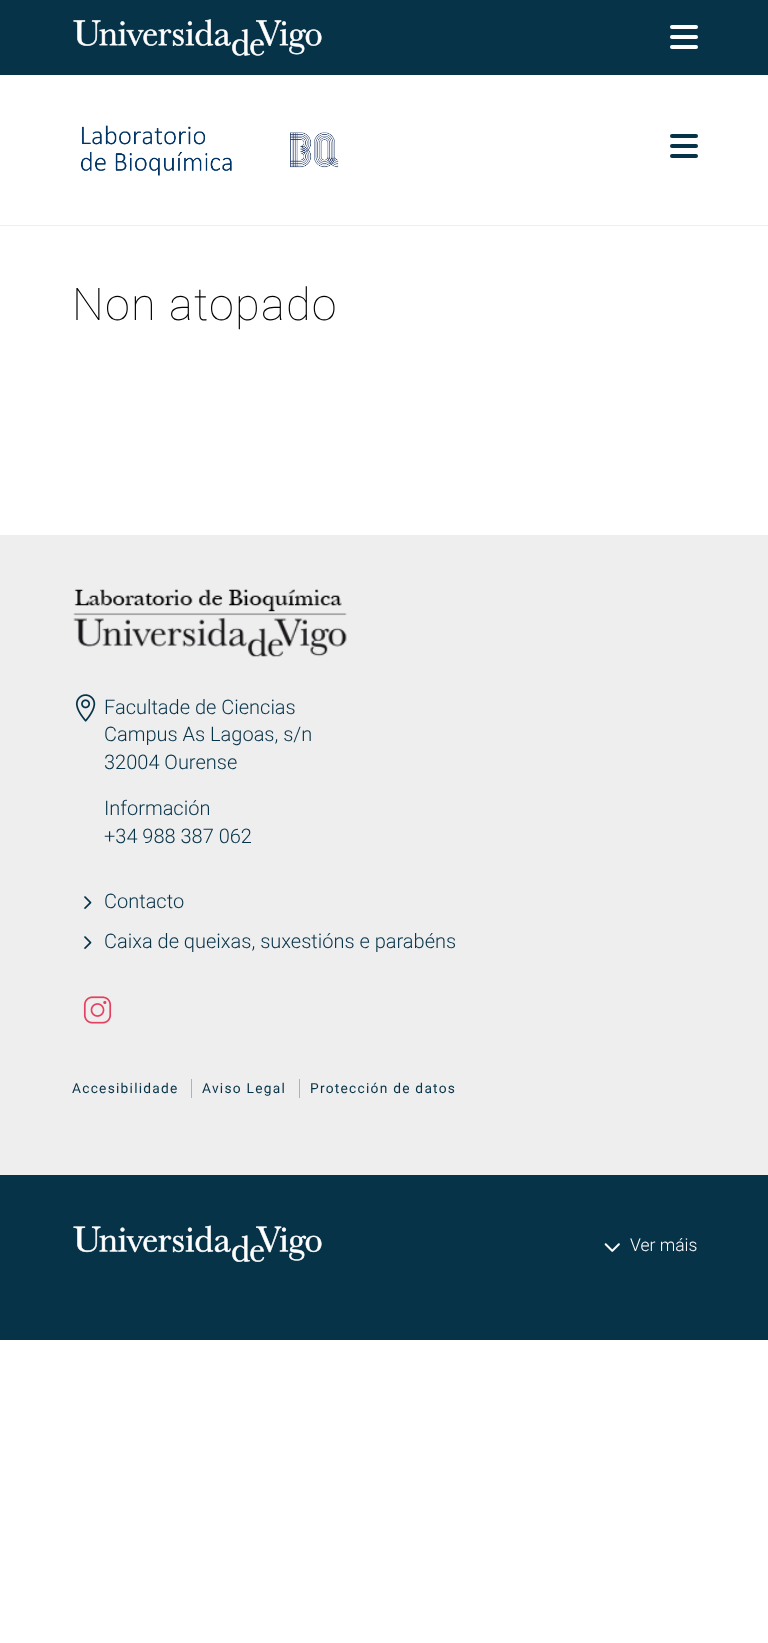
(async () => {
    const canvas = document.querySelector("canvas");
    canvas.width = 768;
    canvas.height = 1643;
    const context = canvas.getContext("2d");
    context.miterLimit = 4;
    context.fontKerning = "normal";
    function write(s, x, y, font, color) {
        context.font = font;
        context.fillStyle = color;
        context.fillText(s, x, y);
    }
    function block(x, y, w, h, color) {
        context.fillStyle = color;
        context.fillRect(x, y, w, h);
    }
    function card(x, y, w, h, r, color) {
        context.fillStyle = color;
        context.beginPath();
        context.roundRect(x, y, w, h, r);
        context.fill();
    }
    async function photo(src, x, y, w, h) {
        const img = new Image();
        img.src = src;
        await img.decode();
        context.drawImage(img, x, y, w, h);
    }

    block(0, 0, 768, 1643, "rgb(255, 255, 255)");
    block(0, 0, 768, 75, "rgb(7, 51, 73)");
    await photo("media/1.png", 73, 19, 249, 37);
    card(670, 25, 28, 4, 2, "rgb(255, 255, 255)");
    card(670, 35, 28, 4, 2, "rgb(255, 255, 255)");
    card(670, 45, 28, 4, 2, "rgb(255, 255, 255)");
    block(0, 225, 768, 1, "rgb(238, 238, 238)");
    await photo("media/2.png", 80, 125, 259, 51);
    card(670, 134, 28, 4, 2, "rgb(7, 51, 73)");
    card(670, 144, 28, 4, 2, "rgb(7, 51, 73)");
    card(670, 154, 28, 4, 2, "rgb(7, 51, 73)");
    context.letterSpacing = "1.25px";
    write("Non atopado", 72, 320, "100 45px Roboto", "rgb(0, 0, 0)");
    block(0, 535, 768, 640, "rgb(238, 238, 238)");
    await photo("media/3.png", 73, 589, 274, 68);
    await photo("media/4.png", 75, 694, 21, 28);
    context.letterSpacing = "0px";
    write("Facultade de Ciencias", 104, 714, "300 20px Roboto", "rgb(7, 51, 73)");
    write("Campus As Lagoas, s/n", 104, 741, "300 20px Roboto", "rgb(7, 51, 73)");
    write("32004 Ourense", 104, 769, "300 20px Roboto", "rgb(7, 51, 73)");
    write("Información", 104, 815, "300 20px Roboto", "rgb(7, 51, 73)");
    write("+34 988 387 062", 104, 843, "300 20px Roboto", "rgb(7, 51, 73)");
    await photo("media/5.png", 84, 896, 8, 13);
    write("Contacto", 104, 908, "300 20px Roboto", "rgb(7, 51, 73)");
    await photo("media/5.png", 84, 936, 8, 13);
    write("Caixa de queixas, suxestións e parabéns", 104, 948, "300 20px Roboto", "rgb(7, 51, 73)");
    await photo("media/6.png", 83, 996, 29, 28);
    context.letterSpacing = "1.25px";
    write("Accesibilidade", 72, 1093, "13.75px Roboto", "rgb(7, 51, 73)");
    block(191, 1079, 1, 19, "rgb(178, 178, 178)");
    write("Aviso Legal", 202, 1093, "13.75px Roboto", "rgb(7, 51, 73)");
    block(299, 1079, 1, 19, "rgb(178, 178, 178)");
    write("Protección de datos", 310, 1093, "13.75px Roboto", "rgb(7, 51, 73)");
    block(0, 1175, 768, 165, "rgb(7, 51, 73)");
    await photo("media/7.png", 73, 1225, 249, 37);
    await photo("media/8.png", 604, 1243, 16, 9);
    context.letterSpacing = "0px";
    write("Ver máis", 630, 1251, "300 17.5px Roboto", "rgb(255, 255, 255)");
})();
